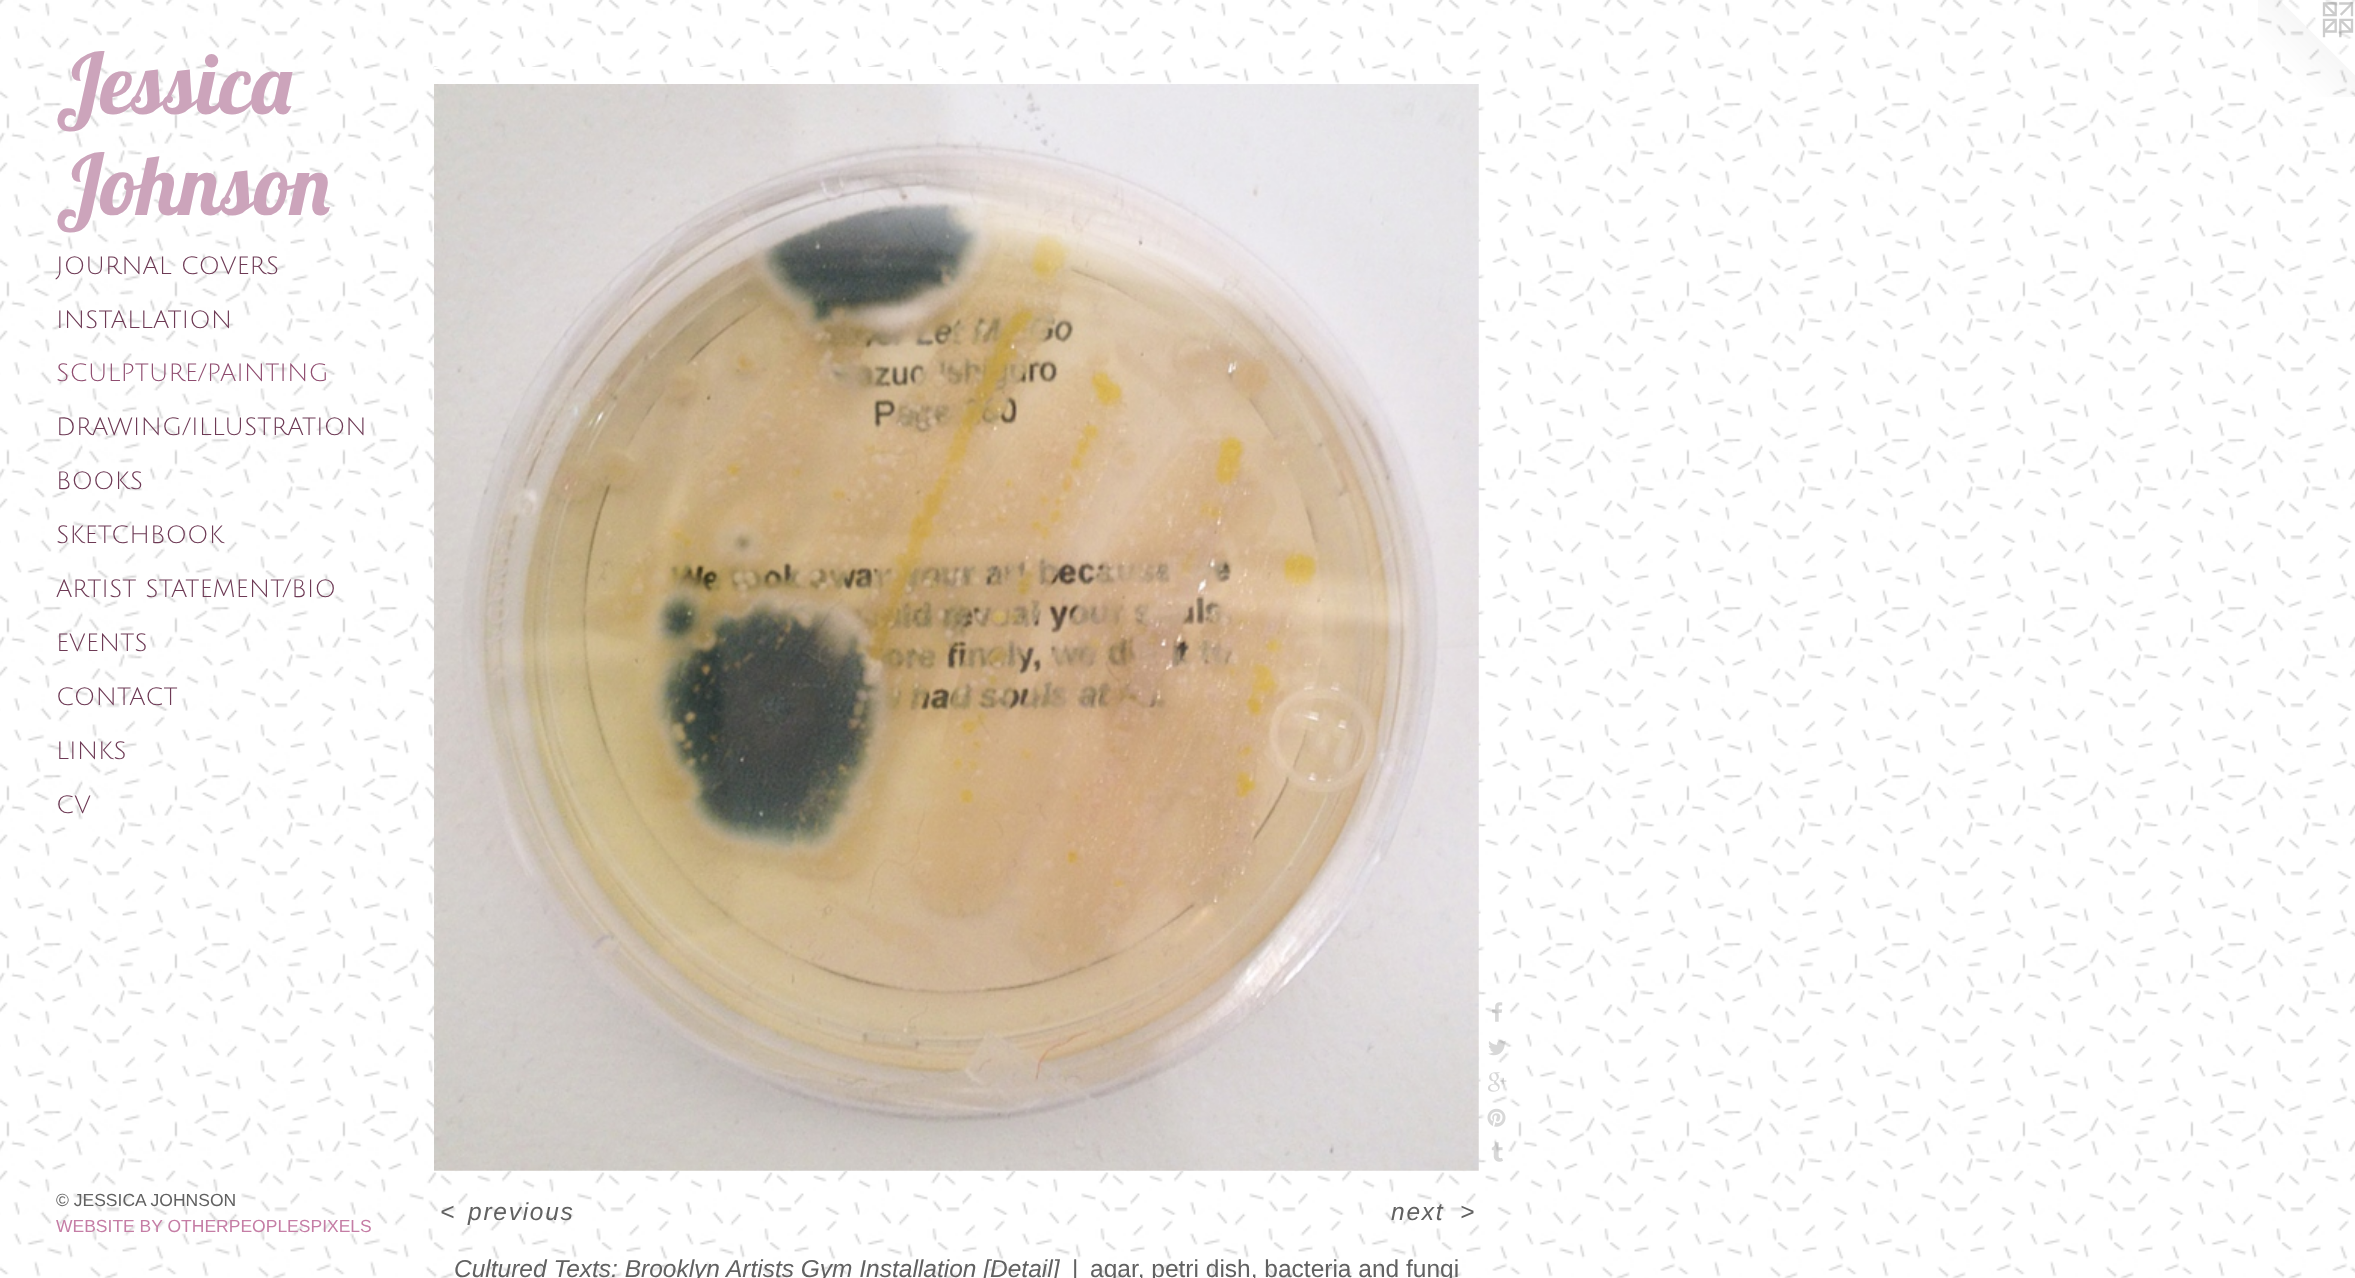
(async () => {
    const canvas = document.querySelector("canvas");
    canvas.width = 2355;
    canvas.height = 1278;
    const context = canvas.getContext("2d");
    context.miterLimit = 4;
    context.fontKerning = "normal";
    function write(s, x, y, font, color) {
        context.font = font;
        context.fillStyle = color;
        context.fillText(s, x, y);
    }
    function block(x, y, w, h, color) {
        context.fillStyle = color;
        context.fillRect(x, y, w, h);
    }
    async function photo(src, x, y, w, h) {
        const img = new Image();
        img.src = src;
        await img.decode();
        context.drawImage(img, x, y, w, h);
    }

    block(0, 0, 2355, 1278, "rgb(255, 255, 255)");
    await photo("media/1.png", 0, 0, 2355, 1278);
    write("Jessica", 56, 114, "84px Lobster", "rgb(204, 164, 187)");
    write("Johnson", 56, 215, "84px Lobster", "rgb(204, 164, 187)");
    write("JOURNAL COVERS", 56, 274, "24.5px Julius Sans One", "rgb(110, 58, 85)");
    write("INSTALLATION", 56, 328, "24.5px Julius Sans One", "rgb(110, 58, 85)");
    write("SCULPTURE/PAINTING", 56, 381, "24.5px Julius Sans One", "rgb(143, 76, 111)");
    write("DRAWING/ILLUSTRATION", 56, 435, "24.5px Julius Sans One", "rgb(110, 58, 85)");
    write("BOOKS", 56, 489, "24.5px Julius Sans One", "rgb(110, 58, 85)");
    write("SKETCHBOOK", 56, 543, "24.5px Julius Sans One", "rgb(110, 58, 85)");
    write("ARTIST STATEMENT/BIO", 56, 597, "24.5px Julius Sans One", "rgb(110, 58, 85)");
    write("EVENTS", 56, 651, "24.5px Julius Sans One", "rgb(110, 58, 85)");
    write("CONTACT", 56, 705, "24.5px Julius Sans One", "rgb(110, 58, 85)");
    write("LINKS", 56, 759, "24.5px Julius Sans One", "rgb(110, 58, 85)");
    write("CV", 56, 813, "24.5px Julius Sans One", "rgb(110, 58, 85)");
    write("© JESSICA JOHNSON", 56, 1206, "17.5px Liberation Sans", "rgb(97, 97, 97)");
    write("WEBSITE BY OTHERPEOPLESPIXELS", 56, 1232, "17.5px Liberation Sans", "rgb(197, 125, 165)");
    await photo("media/2.png", 2258, 0, 97, 97);
    block(434, 67, 141, 2, "rgb(255, 255, 255)");
    block(689, 67, 253, 2, "rgb(255, 255, 255)");
    await photo("media/3.png", 434, 84, 1045, 1087);
    await photo("media/4.png", 1492, 1002, 11, 20);
    await photo("media/5.png", 1488, 1040, 18, 16);
    await photo("media/6.png", 1488, 1072, 19, 20);
    await photo("media/7.png", 1487, 1108, 19, 19);
    await photo("media/8.png", 1491, 1142, 12, 20);
    context.letterSpacing = "1.75px";
    write("<", 440, 1220, "italic 24.5px Liberation Sans", "rgb(97, 97, 97)");
    write("previous", 468, 1220, "italic 24.5px Liberation Sans", "rgb(97, 97, 97)");
    write("next", 1391, 1220, "italic 24.5px Liberation Sans", "rgb(97, 97, 97)");
    write(">", 1460, 1220, "italic 24.5px Liberation Sans", "rgb(97, 97, 97)");
    context.letterSpacing = "0px";
    write("Cultured Texts: Brooklyn Artists Gym Installation [Detail]", 454, 1277, "italic 24.5px Liberation Sans", "rgb(97, 97, 97)");
    write("|", 1072, 1277, "24.5px Liberation Sans", "rgb(97, 97, 97)");
    write("agar, petri dish, bacteria and fungi", 1090, 1277, "24.5px Liberation Sans", "rgb(97, 97, 97)");
})();
